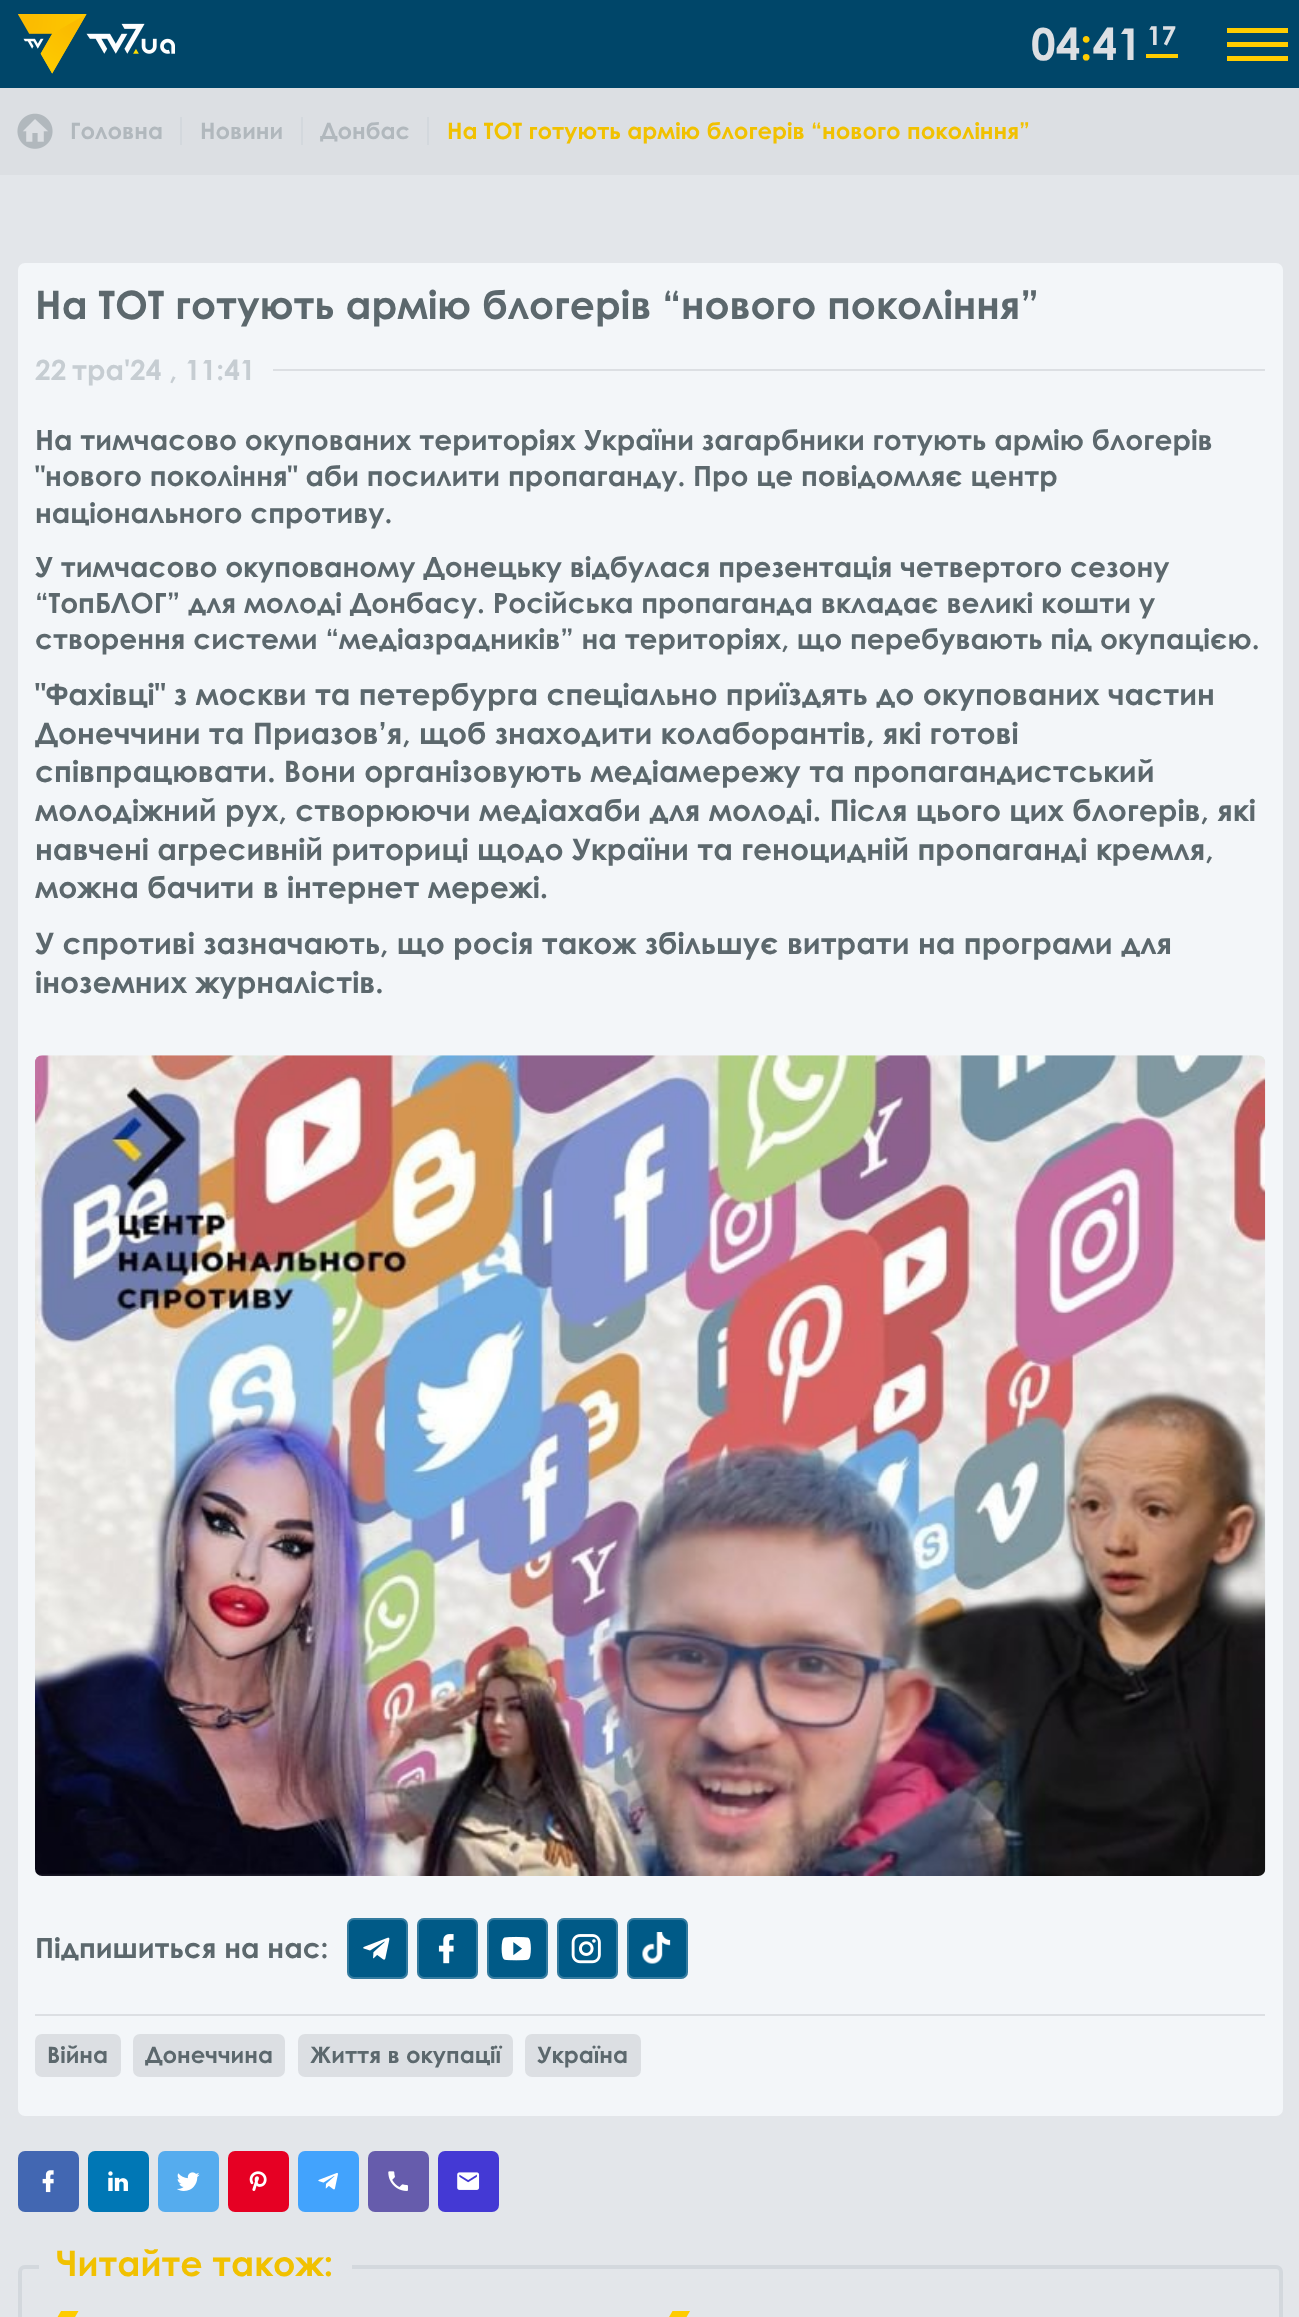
(async () => {
    const canvas = document.querySelector("canvas");
    canvas.width = 1299;
    canvas.height = 2317;
    const context = canvas.getContext("2d");
    context.miterLimit = 4;
    context.fontKerning = "normal";
    function write(s, x, y, font, color) {
        context.font = font;
        context.fillStyle = color;
        context.fillText(s, x, y);
    }
    function block(x, y, w, h, color) {
        context.fillStyle = color;
        context.fillRect(x, y, w, h);
    }
    function card(x, y, w, h, r, color) {
        context.fillStyle = color;
        context.beginPath();
        context.roundRect(x, y, w, h, r);
        context.fill();
    }
    async function photo(src, x, y, w, h) {
        const img = new Image();
        img.src = src;
        await img.decode();
        context.drawImage(img, x, y, w, h);
    }

    block(0, 0, 1299, 2317, "rgb(227, 230, 234)");
    block(0, 0, 1299, 88, "rgb(0, 70, 105)");
    await photo("media/1.png", 18, 14, 157, 60);
    block(1227, 28, 61, 5, "rgb(255, 204, 0)");
    block(1227, 42, 61, 5, "rgb(255, 204, 0)");
    block(1227, 56, 61, 5, "rgb(255, 204, 0)");
    write("04 41", 1031, 60, "bold 44px Century Gothic", "rgb(220, 223, 227)");
    write(":", 1080, 60, "bold 44px Century Gothic", "rgb(255, 204, 0)");
    block(1146, 54, 32, 4, "rgb(255, 204, 0)");
    write("17", 1147, 45, "bold 26px Century Gothic", "rgb(220, 223, 227)");
    block(0, 88, 1299, 87, "rgb(220, 223, 227)");
    await photo("media/2.png", 17, 113, 36, 36);
    write("Головна", 70, 139, "bold 22.75px Century Gothic", "rgb(177, 184, 189)");
    block(180, 117, 2, 28, "rgb(211, 216, 221)");
    write("Новини", 200, 139, "bold 22.75px Century Gothic", "rgb(177, 184, 189)");
    block(301, 117, 2, 28, "rgb(211, 216, 221)");
    write("Донбас", 320, 139, "bold 22.75px Century Gothic", "rgb(177, 184, 189)");
    block(427, 117, 2, 28, "rgb(211, 216, 221)");
    write("На ТОТ готують армію блогерів “нового покоління”", 447, 139, "bold 22.75px Century Gothic", "rgb(241, 193, 0)");
    card(18, 263, 1265, 1853, 7, "rgb(243, 246, 249)");
    write("На ТОТ готують армію блогерів “нового покоління”", 35, 319, "bold 39.2px Century Gothic", "rgb(92, 104, 109)");
    write("22", 35, 380, "bold 28px Century Gothic", "rgb(198, 205, 210)");
    write("тра'24 , 11:41", 72, 380, "bold 28px Century Gothic", "rgb(198, 205, 210)");
    block(273, 369, 992, 2, "rgb(220, 223, 227)");
    write("На тимчасово окупованих територіях України загарбники готують армію блогерів", 35, 450, "bold 28px Century Gothic", "rgb(92, 104, 109)");
    write("\"нового покоління\" аби посилити пропаганду. Про це повідомляє центр", 35, 486, "bold 28px Century Gothic", "rgb(92, 104, 109)");
    write("національного спротиву.", 35, 523, "bold 28px Century Gothic", "rgb(92, 104, 109)");
    write("У тимчасово окупованому Донецьку відбулася презентація четвертого сезону", 35, 577, "bold 28px Century Gothic", "rgb(92, 104, 109)");
    write("“ТопБЛОГ” для молоді Донбасу. Російська пропаганда вкладає великі кошти у", 35, 613, "bold 28px Century Gothic", "rgb(92, 104, 109)");
    write("створення системи “медіазрадників” на територіях, що перебувають під окупацією.", 35, 649, "bold 28px Century Gothic", "rgb(92, 104, 109)");
    write("\"Фахівці\" з москви та петербурга спеціально приїздять до окупованих частин", 35, 705, "bold 29.75px Century Gothic", "rgb(92, 104, 109)");
    write("Донеччини та Приазов’я, щоб знаходити колаборантів, які готові", 35, 744, "bold 29.75px Century Gothic", "rgb(92, 104, 109)");
    write("співпрацювати. Вони організовують медіамережу та пропагандистський", 35, 782, "bold 29.75px Century Gothic", "rgb(92, 104, 109)");
    write("молодіжний рух, створюючи медіахаби для молоді. Після цього цих блогерів, які", 35, 821, "bold 29.75px Century Gothic", "rgb(92, 104, 109)");
    write("навчені агресивній риториці щодо України та геноцидній пропаганді кремля,", 35, 860, "bold 29.75px Century Gothic", "rgb(92, 104, 109)");
    write("можна бачити в інтернет мережі.", 35, 898, "bold 29.75px Century Gothic", "rgb(92, 104, 109)");
    write("У спротиві зазначають, що росія також збільшує витрати на програми для", 35, 954, "bold 29.75px Century Gothic", "rgb(92, 104, 109)");
    write("іноземних журналістів.", 35, 993, "bold 29.75px Century Gothic", "rgb(92, 104, 109)");
    await photo("media/3.png", 35, 1055, 1231, 821);
    write("Підпишиться на нас:", 35, 1958, "bold 28px Century Gothic", "rgb(92, 104, 109)");
    card(347, 1918, 61, 61, 7, "rgb(0, 90, 135)");
    context.beginPath();
    context.roundRect(348, 1919, 59, 59, 6);
    context.strokeStyle = "rgba(255, 255, 255, 0.2)";
    context.lineWidth = 2;
    context.stroke();
    await photo("media/4.png", 363, 1937, 27, 23);
    card(417, 1918, 61, 61, 7, "rgb(0, 90, 135)");
    context.beginPath();
    context.roundRect(418, 1919, 59, 59, 6);
    context.stroke();
    await photo("media/5.png", 438, 1934, 16, 30);
    card(487, 1918, 61, 61, 7, "rgb(0, 90, 135)");
    context.beginPath();
    context.roundRect(488, 1919, 59, 59, 6);
    context.stroke();
    await photo("media/6.png", 501, 1936, 30, 25);
    card(557, 1918, 61, 61, 7, "rgb(0, 90, 135)");
    context.beginPath();
    context.roundRect(558, 1919, 59, 59, 6);
    context.stroke();
    await photo("media/7.png", 571, 1934, 30, 30);
    card(627, 1918, 61, 61, 7, "rgb(0, 90, 135)");
    context.beginPath();
    context.roundRect(628, 1919, 59, 59, 6);
    context.stroke();
    await photo("media/8.png", 642, 1932, 29, 32);
    block(35, 2014, 1230, 2, "rgb(220, 223, 227)");
    card(35, 2034, 86, 43, 7, "rgb(220, 223, 227)");
    write("Війна", 47, 2063, "bold 22.75px Century Gothic", "rgb(92, 104, 109)");
    card(133, 2034, 152, 43, 7, "rgb(220, 223, 227)");
    write("Донеччина", 145, 2063, "bold 22.75px Century Gothic", "rgb(92, 104, 109)");
    card(298, 2034, 215, 43, 7, "rgb(220, 223, 227)");
    write("Життя в окупації", 310, 2063, "bold 22.75px Century Gothic", "rgb(92, 104, 109)");
    card(525, 2034, 116, 43, 7, "rgb(220, 223, 227)");
    write("Україна", 537, 2063, "bold 22.75px Century Gothic", "rgb(92, 104, 109)");
    card(18, 2151, 61, 61, 7, "rgb(66, 103, 178)");
    await photo("media/9.png", 42, 2170, 12, 23);
    card(88, 2151, 61, 61, 7, "rgb(0, 119, 181)");
    await photo("media/10.png", 108, 2171, 20, 20);
    card(158, 2151, 61, 61, 7, "rgb(85, 172, 238)");
    await photo("media/11.png", 177, 2172, 23, 19);
    card(228, 2151, 61, 61, 7, "rgb(230, 0, 35)");
    await photo("media/12.png", 249, 2171, 18, 20);
    card(298, 2151, 61, 61, 7, "rgb(66, 163, 253)");
    await photo("media/13.png", 318, 2172, 20, 18);
    card(368, 2151, 61, 61, 7, "rgb(102, 92, 172)");
    await photo("media/14.png", 388, 2171, 20, 20);
    card(438, 2151, 61, 61, 7, "rgb(68, 57, 212)");
    await photo("media/15.png", 457, 2172, 23, 18);
    context.beginPath();
    context.roundRect(20, 2267, 1261, 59, 5);
    context.strokeStyle = "rgb(211, 216, 221)";
    context.lineWidth = 4;
    context.stroke();
    block(39, 2265, 313, 4, "rgb(227, 230, 234)");
    write("Читайте також:", 56, 2276, "bold 35px Century Gothic", "rgb(241, 193, 0)");
    context.fillStyle = "rgb(255, 204, 0)";
    context.beginPath();
    context.moveTo(61, 2311);
    context.lineTo(78.5, 2311);
    context.lineTo(68.5, 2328.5);
    context.lineTo(51, 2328.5);
    context.closePath();
    context.fill();
    context.beginPath();
    context.moveTo(672.5, 2311);
    context.lineTo(690, 2311);
    context.lineTo(680, 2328.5);
    context.lineTo(662.5, 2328.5);
    context.closePath();
    context.fill();
})();
